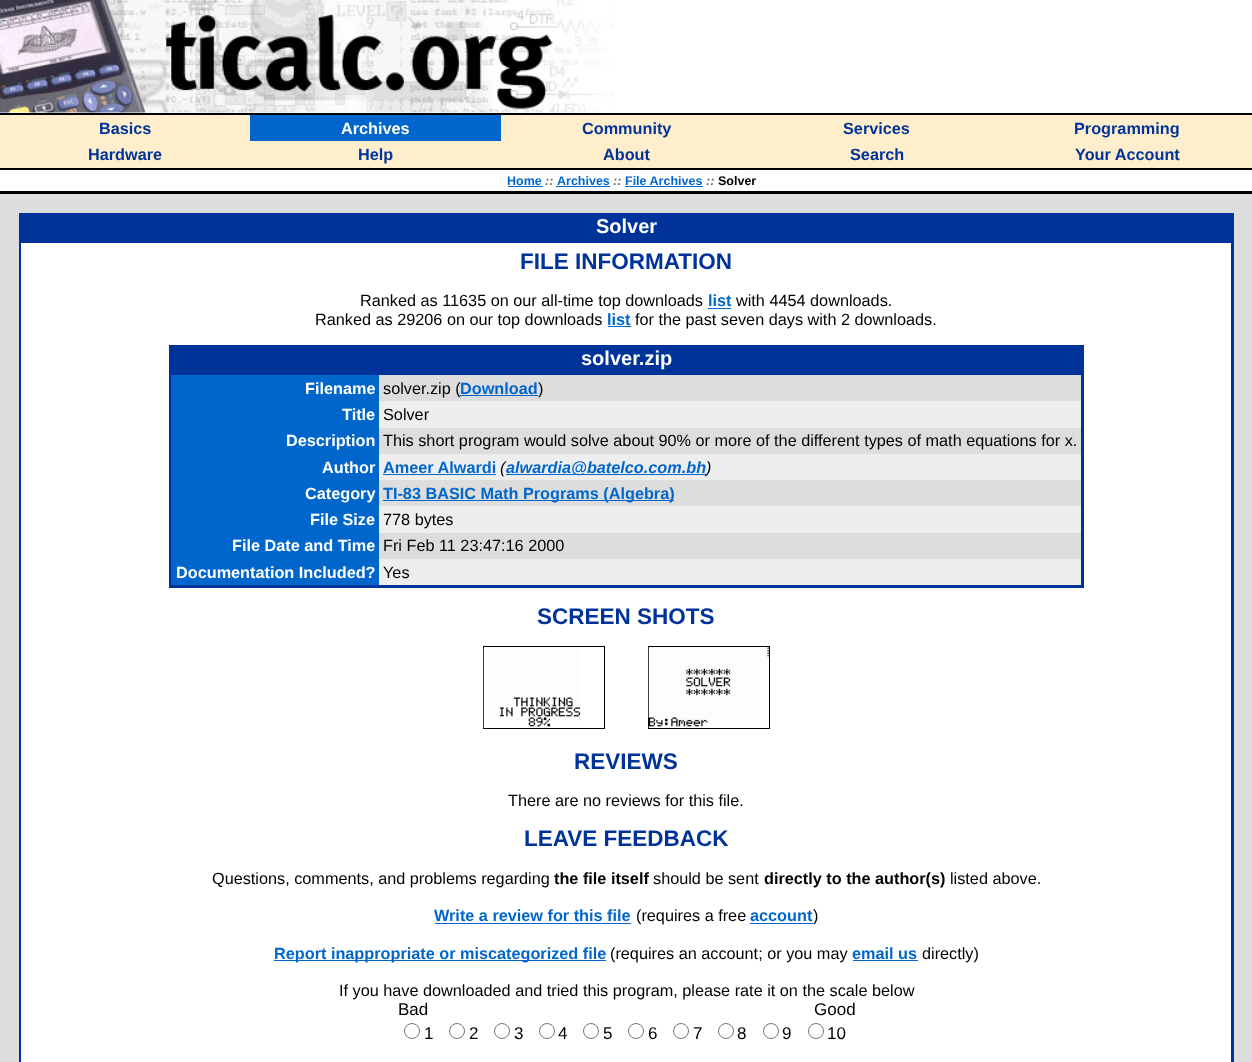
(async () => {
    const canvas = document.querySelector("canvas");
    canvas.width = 1252;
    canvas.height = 1062;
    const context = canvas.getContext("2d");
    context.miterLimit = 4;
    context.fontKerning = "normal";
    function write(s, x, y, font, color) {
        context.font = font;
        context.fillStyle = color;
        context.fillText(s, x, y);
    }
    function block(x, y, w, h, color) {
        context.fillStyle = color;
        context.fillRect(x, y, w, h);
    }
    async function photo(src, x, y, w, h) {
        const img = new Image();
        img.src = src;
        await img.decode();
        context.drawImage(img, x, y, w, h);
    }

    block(0, 0, 1252, 1062, "rgb(255, 255, 255)");
    await photo("media/1.png", 0, 0, 614, 113);
    block(0, 113, 1252, 2, "rgb(0, 0, 0)");
    block(0, 115, 1252, 53, "rgb(255, 238, 204)");
    write("Basics", 99, 134, "bold 16.25px Liberation Sans", "rgb(0, 51, 153)");
    block(250, 115, 251, 26, "rgb(0, 102, 204)");
    write("Archives", 341, 134, "bold 16.25px Liberation Sans", "rgb(255, 255, 255)");
    write("Community", 582, 134, "bold 16.25px Liberation Sans", "rgb(0, 51, 153)");
    write("Services", 843, 134, "bold 16.25px Liberation Sans", "rgb(0, 51, 153)");
    write("Programming", 1074, 134, "bold 16.25px Liberation Sans", "rgb(0, 51, 153)");
    write("Hardware", 88, 160, "bold 16.25px Liberation Sans", "rgb(0, 51, 153)");
    write("Help", 358, 160, "bold 16.25px Liberation Sans", "rgb(0, 51, 153)");
    write("About", 603, 160, "bold 16.25px Liberation Sans", "rgb(0, 51, 153)");
    write("Search", 850, 160, "bold 16.25px Liberation Sans", "rgb(0, 51, 153)");
    write("Your Account", 1075, 160, "bold 16.25px Liberation Sans", "rgb(0, 51, 153)");
    block(0, 168, 1252, 2, "rgb(0, 0, 0)");
    write("Home", 507, 185, "bold 12.5px Liberation Sans", "rgb(0, 102, 204)");
    block(508, 186, 35, 1, "rgb(0, 102, 204)");
    write("::", 545, 185, "italic bold 12.5px Liberation Sans", "rgb(102, 102, 102)");
    block(556, 186, 54, 1, "rgb(0, 102, 204)");
    write("Archives", 557, 185, "bold 12.5px Liberation Sans", "rgb(0, 102, 204)");
    write("::", 613, 185, "italic bold 12.5px Liberation Sans", "rgb(102, 102, 102)");
    write("File Archives", 625, 185, "bold 12.5px Liberation Sans", "rgb(0, 102, 204)");
    block(625, 186, 78, 1, "rgb(0, 102, 204)");
    write("::", 706, 185, "italic bold 12.5px Liberation Sans", "rgb(102, 102, 102)");
    write("Solver", 718, 185, "bold 12.5px Liberation Sans", "rgb(0, 0, 0)");
    block(0, 191, 1252, 3, "rgb(0, 0, 0)");
    block(0, 194, 1252, 868, "rgb(221, 221, 221)");
    block(19, 213, 1215, 849, "rgb(0, 51, 153)");
    write("Solver", 596, 233, "bold 20px Liberation Sans", "rgb(255, 255, 255)");
    block(21, 243, 1210, 819, "rgb(255, 255, 255)");
    write("FILE INFORMATION", 520, 269, "bold 22.5px Liberation Sans", "rgb(0, 51, 153)");
    write("Ranked as 11635 on our all-time top downloads", 360, 306, "16.25px Liberation Sans", "rgb(0, 0, 0)");
    write("list", 708, 306, "bold 16.25px Liberation Sans", "rgb(0, 102, 204)");
    block(708, 308, 23, 1, "rgb(0, 102, 204)");
    write("with 4454 downloads.", 736, 306, "16.25px Liberation Sans", "rgb(0, 0, 0)");
    write("Ranked as 29206 on our top downloads", 315, 325, "16.25px Liberation Sans", "rgb(0, 0, 0)");
    write("list", 607, 325, "bold 16.25px Liberation Sans", "rgb(0, 102, 204)");
    block(608, 326, 23, 1, "rgb(0, 102, 204)");
    write("for the past seven days with 2 downloads.", 635, 325, "16.25px Liberation Sans", "rgb(0, 0, 0)");
    block(169, 345, 915, 243, "rgb(0, 51, 153)");
    write("solver.zip", 581, 365, "bold 20px Liberation Sans", "rgb(255, 255, 255)");
    block(171, 375, 208, 210, "rgb(0, 102, 204)");
    write("Filename", 305, 394, "bold 16.25px Liberation Sans", "rgb(255, 255, 255)");
    block(379, 375, 702, 26, "rgb(221, 221, 221)");
    write("solver.zip (", 383, 394, "16.25px Liberation Sans", "rgb(0, 0, 0)");
    block(460, 395, 78, 1, "rgb(0, 102, 204)");
    write("Download", 460, 394, "bold 16.25px Liberation Sans", "rgb(0, 102, 204)");
    write(")", 538, 394, "16.25px Liberation Sans", "rgb(0, 0, 0)");
    write("Title", 342, 420, "bold 16.25px Liberation Sans", "rgb(255, 255, 255)");
    block(379, 401, 702, 27, "rgb(238, 238, 238)");
    write("Solver", 383, 420, "16.25px Liberation Sans", "rgb(0, 0, 0)");
    write("Description", 286, 446, "bold 16.25px Liberation Sans", "rgb(255, 255, 255)");
    block(379, 428, 702, 26, "rgb(221, 221, 221)");
    write("This short program would solve about 90% or more of the different types of math equations for x.", 383, 446, "16.25px Liberation Sans", "rgb(0, 0, 0)");
    write("Author", 322, 473, "bold 16.25px Liberation Sans", "rgb(255, 255, 255)");
    block(379, 454, 702, 26, "rgb(238, 238, 238)");
    write("Ameer Alwardi", 383, 473, "bold 16.25px Liberation Sans", "rgb(0, 102, 204)");
    block(383, 474, 113, 1, "rgb(0, 102, 204)");
    write("(", 500, 473, "italic 16.25px Liberation Sans", "rgb(0, 0, 0)");
    block(506, 474, 200, 1, "rgb(0, 102, 204)");
    write("alwardia@batelco.com.bh", 506, 473, "italic bold 16.25px Liberation Sans", "rgb(0, 102, 204)");
    write(")", 706, 473, "italic 16.25px Liberation Sans", "rgb(0, 0, 0)");
    write("Category", 305, 499, "bold 16.25px Liberation Sans", "rgb(255, 255, 255)");
    block(379, 480, 702, 26, "rgb(221, 221, 221)");
    block(383, 500, 291, 1, "rgb(0, 102, 204)");
    write("TI-83 BASIC Math Programs (Algebra)", 383, 499, "bold 16.25px Liberation Sans", "rgb(0, 102, 204)");
    write("File Size", 310, 525, "bold 16.25px Liberation Sans", "rgb(255, 255, 255)");
    block(379, 506, 702, 27, "rgb(238, 238, 238)");
    write("778 bytes", 383, 525, "16.25px Liberation Sans", "rgb(0, 0, 0)");
    write("File Date and Time", 232, 551, "bold 16.25px Liberation Sans", "rgb(255, 255, 255)");
    block(379, 533, 702, 26, "rgb(221, 221, 221)");
    write("Fri Feb 11 23:47:16 2000", 383, 551, "16.25px Liberation Sans", "rgb(0, 0, 0)");
    write("Documentation Included?", 176, 578, "bold 16.25px Liberation Sans", "rgb(255, 255, 255)");
    block(379, 559, 702, 26, "rgb(238, 238, 238)");
    write("Yes", 383, 578, "16.25px Liberation Sans", "rgb(0, 0, 0)");
    write("SCREEN SHOTS", 537, 624, "bold 22.5px Liberation Sans", "rgb(0, 51, 153)");
    context.strokeStyle = "rgb(0, 0, 0)";
    context.strokeRect(483.5, 646.5, 121, 82);
    context.strokeRect(648.5, 646.5, 121, 82);
    await photo("media/2.png", 483, 647, 98, 81);
    await photo("media/3.png", 648, 647, 121, 81);
    write("REVIEWS", 574, 769, "bold 22.5px Liberation Sans", "rgb(0, 51, 153)");
    write("There are no reviews for this file.", 508, 806, "16.25px Liberation Sans", "rgb(0, 0, 0)");
    write("LEAVE FEEDBACK", 524, 846, "bold 22.5px Liberation Sans", "rgb(0, 51, 153)");
    write("Questions, comments, and problems regarding", 212, 884, "16.25px Liberation Sans", "rgb(0, 0, 0)");
    write("the file itself", 554, 884, "bold 16.25px Liberation Sans", "rgb(0, 0, 0)");
    write("should be sent", 653, 884, "16.25px Liberation Sans", "rgb(0, 0, 0)");
    write("directly to the author(s)", 764, 884, "bold 16.25px Liberation Sans", "rgb(0, 0, 0)");
    write("listed above.", 950, 884, "16.25px Liberation Sans", "rgb(0, 0, 0)");
    write("Write a review for this file", 434, 921, "bold 16.25px Liberation Sans", "rgb(0, 102, 204)");
    block(435, 923, 196, 1, "rgb(0, 102, 204)");
    write("(requires a free", 636, 921, "16.25px Liberation Sans", "rgb(0, 0, 0)");
    write("account", 750, 921, "bold 16.25px Liberation Sans", "rgb(0, 102, 204)");
    block(750, 923, 63, 1, "rgb(0, 102, 204)");
    write(")", 813, 921, "16.25px Liberation Sans", "rgb(0, 0, 0)");
    block(274, 960, 332, 1, "rgb(0, 102, 204)");
    write("Report inappropriate or miscategorized file", 274, 959, "bold 16.25px Liberation Sans", "rgb(0, 102, 204)");
    write("(requires an account; or you may", 610, 959, "16.25px Liberation Sans", "rgb(0, 0, 0)");
    write("email us", 852, 959, "bold 16.25px Liberation Sans", "rgb(0, 102, 204)");
    block(853, 960, 65, 1, "rgb(0, 102, 204)");
    write("directly)", 922, 959, "16.25px Liberation Sans", "rgb(0, 0, 0)");
    write("If you have downloaded and tried this program, please rate it on the scale below", 339, 996, "16.25px Liberation Sans", "rgb(0, 0, 0)");
    write("Bad", 398, 1015, "17px Liberation Sans", "rgb(0, 0, 0)");
    write("Good", 814, 1015, "17px Liberation Sans", "rgb(0, 0, 0)");
    context.beginPath();
    context.arc(412, 1031, 7.5, 0, Math.PI * 2);
    context.strokeStyle = "rgb(118, 118, 118)";
    context.stroke();
    write("1", 424, 1039, "17px Liberation Sans", "rgb(0, 0, 0)");
    context.beginPath();
    context.arc(457, 1031, 7.5, 0, Math.PI * 2);
    context.stroke();
    write("2", 469, 1039, "17px Liberation Sans", "rgb(0, 0, 0)");
    context.beginPath();
    context.arc(502, 1031, 7.5, 0, Math.PI * 2);
    context.stroke();
    write("3", 514, 1039, "17px Liberation Sans", "rgb(0, 0, 0)");
    context.beginPath();
    context.arc(547, 1031, 7.5, 0, Math.PI * 2);
    context.stroke();
    write("4", 558, 1039, "17px Liberation Sans", "rgb(0, 0, 0)");
    context.beginPath();
    context.arc(591, 1031, 7.5, 0, Math.PI * 2);
    context.stroke();
    write("5", 603, 1039, "17px Liberation Sans", "rgb(0, 0, 0)");
    context.beginPath();
    context.arc(636, 1031, 7.5, 0, Math.PI * 2);
    context.stroke();
    write("6", 648, 1039, "17px Liberation Sans", "rgb(0, 0, 0)");
    context.beginPath();
    context.arc(681, 1031, 7.5, 0, Math.PI * 2);
    context.stroke();
    write("7", 693, 1039, "17px Liberation Sans", "rgb(0, 0, 0)");
    context.beginPath();
    context.arc(726, 1031, 7.5, 0, Math.PI * 2);
    context.stroke();
    write("8", 737, 1039, "17px Liberation Sans", "rgb(0, 0, 0)");
    context.beginPath();
    context.arc(771, 1031, 7.5, 0, Math.PI * 2);
    context.stroke();
    write("9", 782, 1039, "17px Liberation Sans", "rgb(0, 0, 0)");
    context.beginPath();
    context.arc(816, 1031, 7.5, 0, Math.PI * 2);
    context.stroke();
    write("10", 827, 1039, "17px Liberation Sans", "rgb(0, 0, 0)");
})();
